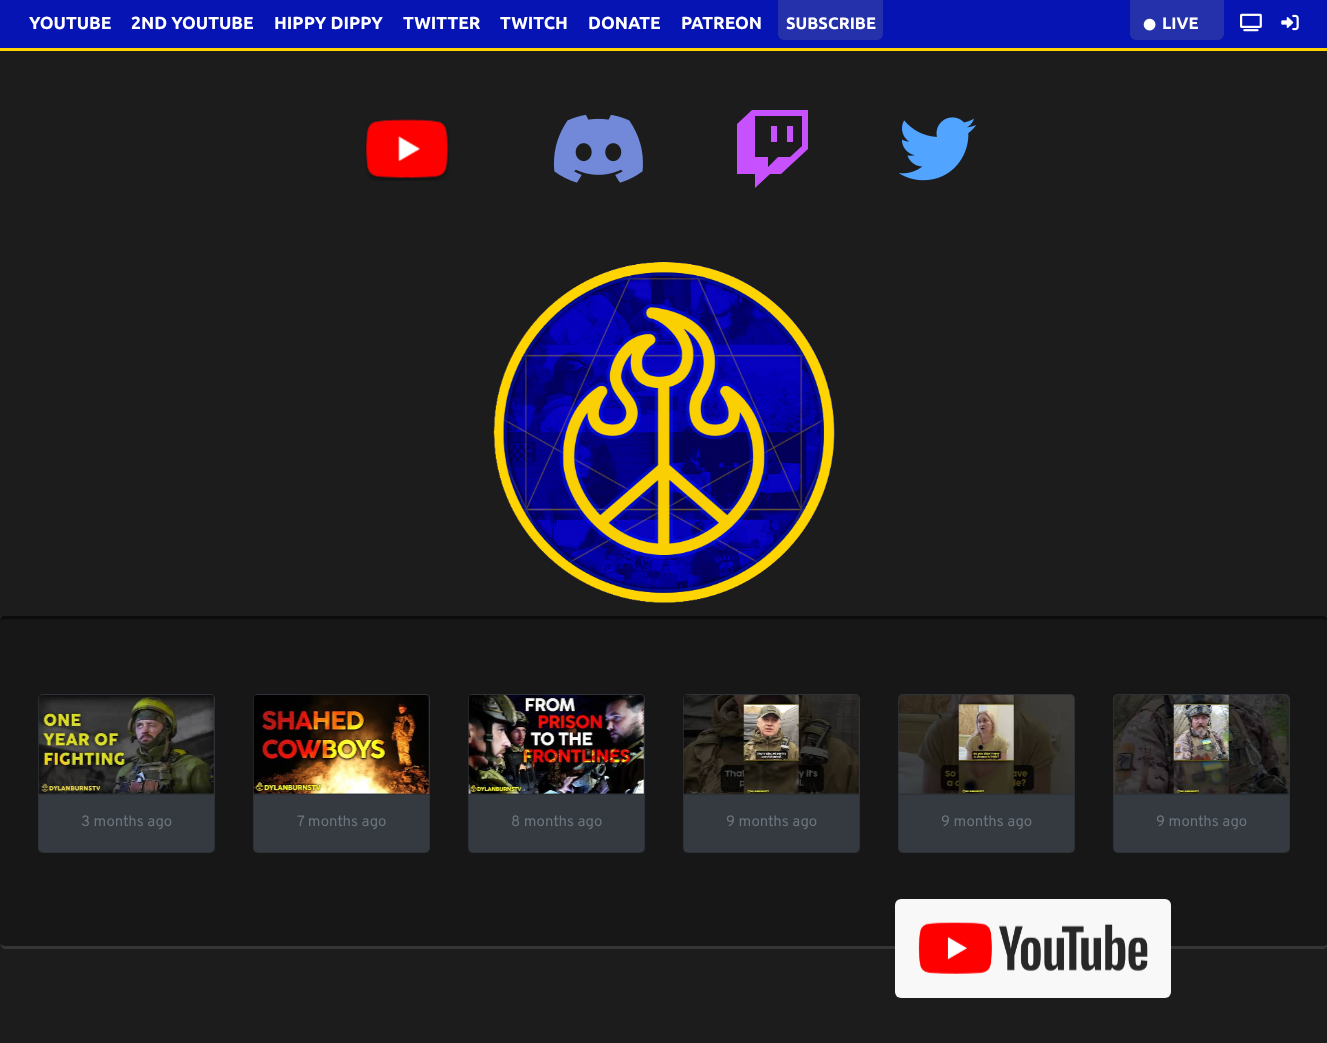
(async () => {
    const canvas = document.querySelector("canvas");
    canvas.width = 1327;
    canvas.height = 1043;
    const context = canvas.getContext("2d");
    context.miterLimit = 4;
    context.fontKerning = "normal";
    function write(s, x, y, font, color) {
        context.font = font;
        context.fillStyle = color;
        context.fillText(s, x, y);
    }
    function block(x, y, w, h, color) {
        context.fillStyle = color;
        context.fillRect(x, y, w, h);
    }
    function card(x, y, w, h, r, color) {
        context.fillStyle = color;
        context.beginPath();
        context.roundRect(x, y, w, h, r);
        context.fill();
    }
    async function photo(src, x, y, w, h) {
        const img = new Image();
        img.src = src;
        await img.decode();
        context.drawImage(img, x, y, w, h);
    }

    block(0, 0, 1327, 1043, "rgb(28, 28, 28)");
    block(0, 0, 1327, 48, "rgb(5, 20, 179)");
    block(0, 48, 1327, 3, "rgb(255, 212, 0)");
    write("YOUTUBE", 29, 29, "bold 17.5px Ubuntu", "rgb(255, 255, 255)");
    write("2ND YOUTUBE", 131, 29, "bold 17.5px Ubuntu", "rgb(255, 255, 255)");
    write("HIPPY DIPPY", 274, 29, "bold 17.5px Ubuntu", "rgb(255, 255, 255)");
    write("TWITTER", 403, 29, "bold 17.5px Ubuntu", "rgb(255, 255, 255)");
    write("TWITCH", 500, 29, "bold 17.5px Ubuntu", "rgb(255, 255, 255)");
    write("DONATE", 588, 29, "bold 17.5px Ubuntu", "rgb(255, 255, 255)");
    write("PATREON", 681, 29, "bold 17.5px Ubuntu", "rgb(255, 255, 255)");
    context.fillStyle = "rgb(37, 49, 170)";
    context.beginPath();
    context.roundRect(778, 0, 105, 40, [0, 0, 6, 6]);
    context.fill();
    write("SUBSCRIBE", 786, 29, "bold 16.5px Ubuntu", "rgb(255, 255, 255)");
    context.fillStyle = "rgb(37, 49, 170)";
    context.beginPath();
    context.roundRect(1130, 0, 94, 40, [0, 0, 6, 6]);
    context.fill();
    await photo("media/1.png", 1143, 18, 13, 13);
    write("LIVE", 1162, 29, "bold 16.5px Ubuntu", "rgb(255, 255, 255)");
    await photo("media/2.png", 1240, 13, 22, 19);
    await photo("media/3.png", 1281, 14, 18, 17);
    await photo("media/4.png", 365, 119, 84, 62);
    await photo("media/5.png", 553, 114, 90, 69);
    context.fillStyle = "rgb(199, 81, 255)";
    context.beginPath();
    context.moveTo(793, 126);
    context.lineTo(787, 126);
    context.lineTo(787, 142);
    context.lineTo(793, 142);
    context.closePath();
    context.moveTo(777, 126);
    context.lineTo(771, 126);
    context.lineTo(771, 142);
    context.lineTo(777, 142);
    context.closePath();
    context.moveTo(752, 110);
    context.lineTo(737, 124);
    context.lineTo(737, 174);
    context.lineTo(755, 174);
    context.lineTo(755, 188);
    context.lineTo(770, 174);
    context.lineTo(781, 174);
    context.lineTo(808, 149);
    context.lineTo(808, 110);
    context.closePath();
    context.moveTo(802, 146);
    context.lineTo(790, 157);
    context.lineTo(778, 157);
    context.lineTo(768, 167);
    context.lineTo(768, 157);
    context.lineTo(755, 157);
    context.lineTo(755, 116);
    context.lineTo(802, 116);
    context.closePath();
    context.fill();
    await photo("media/6.png", 899, 117, 77, 64);
    await photo("media/7.png", 493, 261, 342, 342);
    context.fillStyle = "rgb(23, 23, 23)";
    context.beginPath();
    context.moveTo(6, 619);
    context.lineTo(1322, 619);
    context.bezierCurveTo(1325, 619, 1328, 620, 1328, 622);
    context.lineTo(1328, 943);
    context.bezierCurveTo(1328, 945, 1325, 946, 1322, 946);
    context.lineTo(6, 946);
    context.bezierCurveTo(3, 946, 0, 945, 0, 943);
    context.lineTo(0, 622);
    context.bezierCurveTo(0, 620, 3, 619, 6, 619);
    context.closePath();
    context.fill();
    context.fillStyle = "rgb(12, 12, 12)";
    context.beginPath();
    context.moveTo(6, 619);
    context.bezierCurveTo(3, 619, 0, 620, 0, 622);
    context.bezierCurveTo(0, 620, 2, 616, 4, 616);
    context.lineTo(1324, 616);
    context.bezierCurveTo(1325, 616, 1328, 619, 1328, 621);
    context.bezierCurveTo(1327, 620, 1324, 619, 1322, 619);
    context.closePath();
    context.fill();
    context.fillStyle = "rgb(53, 53, 53)";
    context.beginPath();
    context.moveTo(4, 949);
    context.bezierCurveTo(2, 948, 0, 945, 0, 943);
    context.bezierCurveTo(0, 945, 3, 946, 6, 946);
    context.lineTo(1322, 946);
    context.bezierCurveTo(1324, 946, 1327, 945, 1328, 944);
    context.bezierCurveTo(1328, 946, 1325, 949, 1324, 949);
    context.closePath();
    context.fill();
    card(38, 694, 177, 159, 5, "rgb(52, 58, 64)");
    context.beginPath();
    context.roundRect(38.5, 694.5, 176, 158, 4.5);
    context.strokeStyle = "rgba(0, 0, 0, 0.12)";
    context.stroke();
    await photo("media/8.png", 38, 695, 176, 99);
    block(39, 794, 175, 1, "rgb(44, 49, 54)");
    write("3 months ago", 81, 826, "15px Overpass", "rgb(108, 117, 125)");
    card(253, 694, 177, 159, 5, "rgb(52, 58, 64)");
    context.beginPath();
    context.roundRect(253.5, 694.5, 176, 158, 4.5);
    context.stroke();
    await photo("media/9.png", 253, 695, 176, 99);
    block(254, 794, 175, 1, "rgb(44, 49, 54)");
    write("7 months ago", 297, 826, "15px Overpass", "rgb(108, 117, 125)");
    card(468, 694, 177, 159, 5, "rgb(52, 58, 64)");
    context.beginPath();
    context.roundRect(468.5, 694.5, 176, 158, 4.5);
    context.stroke();
    await photo("media/10.png", 468, 695, 176, 99);
    block(469, 794, 175, 1, "rgb(44, 49, 54)");
    write("8 months ago", 511, 826, "15px Overpass", "rgb(108, 117, 125)");
    card(683, 694, 177, 159, 5, "rgb(52, 58, 64)");
    context.beginPath();
    context.roundRect(683.5, 694.5, 176, 158, 4.5);
    context.stroke();
    await photo("media/11.png", 683, 695, 176, 99);
    block(684, 794, 175, 1, "rgb(44, 49, 54)");
    write("9 months ago", 726, 826, "15px Overpass", "rgb(108, 117, 125)");
    card(898, 694, 177, 159, 5, "rgb(52, 58, 64)");
    context.beginPath();
    context.roundRect(898.5, 694.5, 176, 158, 4.5);
    context.stroke();
    await photo("media/12.png", 898, 695, 176, 99);
    block(899, 794, 175, 1, "rgb(44, 49, 54)");
    write("9 months ago", 941, 826, "15px Overpass", "rgb(108, 117, 125)");
    card(1113, 694, 177, 159, 5, "rgb(52, 58, 64)");
    context.beginPath();
    context.roundRect(1113.5, 694.5, 176, 158, 4.5);
    context.stroke();
    await photo("media/13.png", 1113, 695, 176, 99);
    block(1114, 794, 175, 1, "rgb(44, 49, 54)");
    write("9 months ago", 1156, 826, "15px Overpass", "rgb(108, 117, 125)");
    card(895, 899, 276, 99, 6, "rgb(248, 248, 248)");
    await photo("media/14.png", 918, 922, 230, 52);
})();
